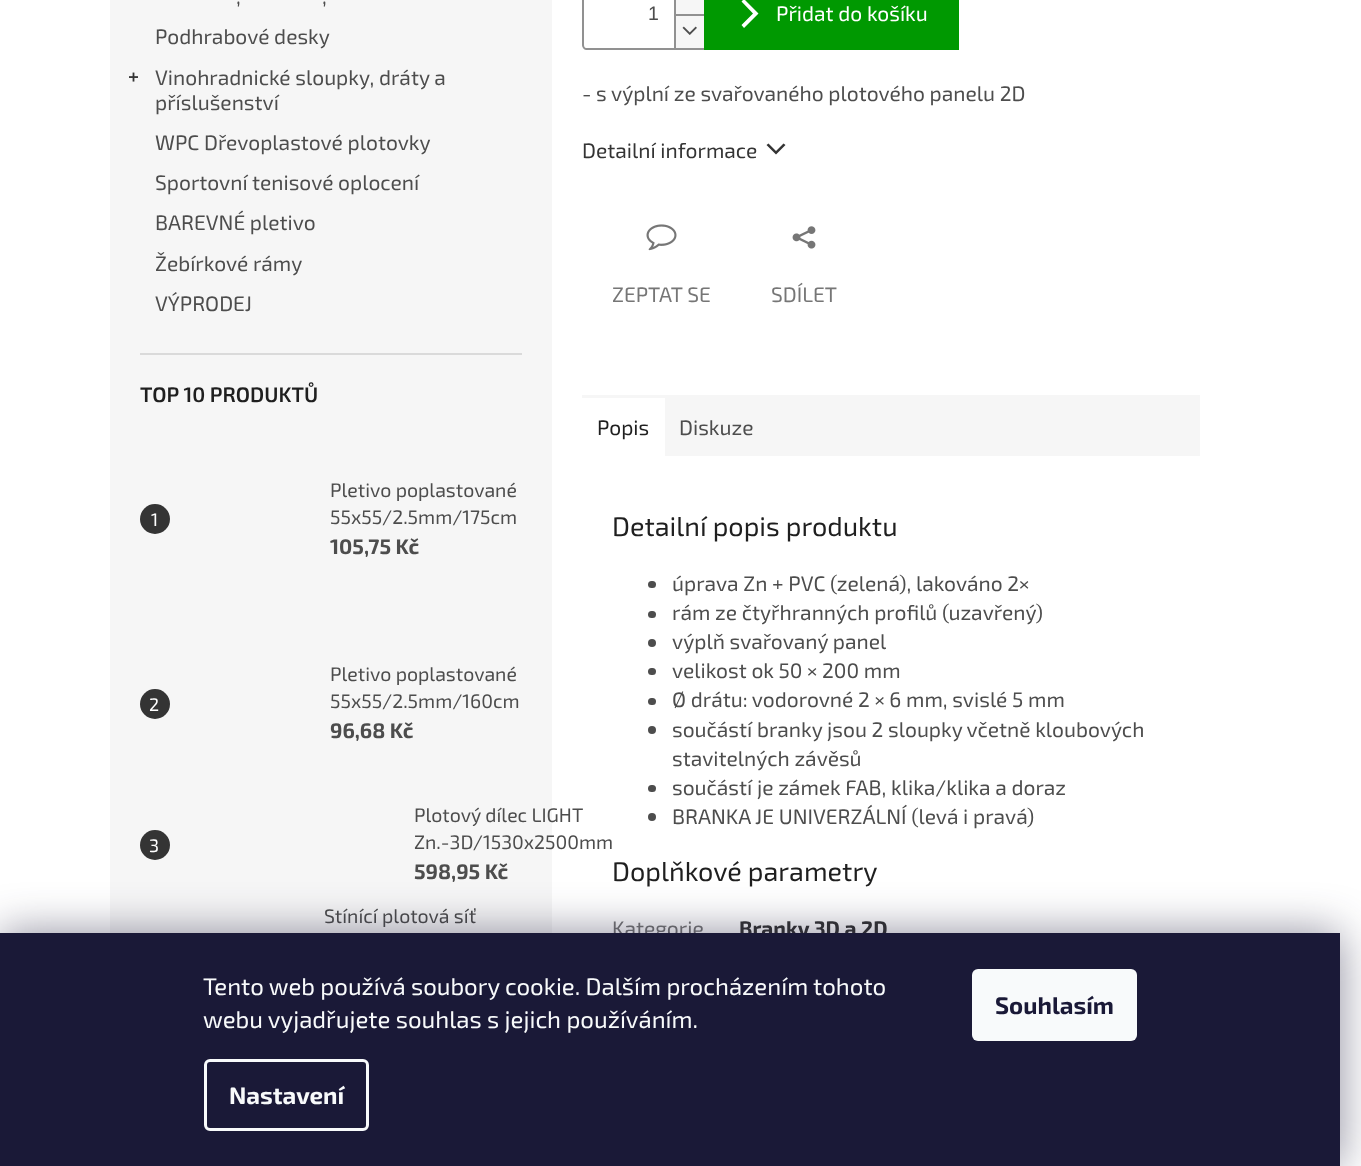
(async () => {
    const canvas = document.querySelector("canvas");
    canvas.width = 1361;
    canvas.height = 1166;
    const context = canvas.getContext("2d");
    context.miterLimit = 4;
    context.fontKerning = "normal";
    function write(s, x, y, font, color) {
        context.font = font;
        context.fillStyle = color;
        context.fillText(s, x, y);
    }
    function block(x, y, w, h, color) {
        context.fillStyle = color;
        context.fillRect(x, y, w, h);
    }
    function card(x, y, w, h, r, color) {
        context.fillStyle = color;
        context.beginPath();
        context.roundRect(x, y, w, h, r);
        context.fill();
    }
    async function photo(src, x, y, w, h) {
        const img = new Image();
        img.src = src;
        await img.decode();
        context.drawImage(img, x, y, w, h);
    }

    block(0, 0, 1361, 1166, "rgb(255, 255, 255)");
    block(110, 0, 442, 933, "rgb(246, 246, 246)");
    block(140, 353, 382, 2, "rgb(218, 218, 218)");
    write(",", 236, 4, "21px 'Exo 2'", "rgb(77, 77, 77)");
    write(",", 322, 4, "21px 'Exo 2'", "rgb(77, 77, 77)");
    write("Podhrabové desky", 155, 44, "21px 'Exo 2'", "rgb(77, 77, 77)");
    await photo("media/1.png", 129, 72, 9, 10);
    write("Vinohradnické sloupky, dráty a", 155, 85, "21px 'Exo 2'", "rgb(77, 77, 77)");
    write("příslušenství", 155, 110, "21px 'Exo 2'", "rgb(77, 77, 77)");
    write("WPC Dřevoplastové plotovky", 155, 150, "21px 'Exo 2'", "rgb(77, 77, 77)");
    write("Sportovní tenisové oplocení", 155, 190, "21px 'Exo 2'", "rgb(77, 77, 77)");
    write("BAREVNÉ pletivo", 155, 230, "21px 'Exo 2'", "rgb(77, 77, 77)");
    write("Žebírkové rámy", 155, 271, "21px 'Exo 2'", "rgb(77, 77, 77)");
    write("VÝPRODEJ", 155, 311, "21px 'Exo 2'", "rgb(77, 77, 77)");
    write("TOP 10 PRODUKTŮ", 140, 402, "600 21px 'Exo 2'", "rgb(31, 31, 31)");
    context.fillStyle = "rgb(52, 52, 52)";
    context.beginPath();
    context.arc(155, 519, 15, 0, Math.PI * 2);
    context.fill();
    write("1", 151, 526, "18px 'Exo 2'", "rgb(255, 255, 255)");
    write("Pletivo poplastované", 330, 497, "19.5px 'Exo 2'", "rgb(77, 77, 77)");
    write("55x55/2.5mm/175cm", 330, 524, "19.5px 'Exo 2'", "rgb(77, 77, 77)");
    write("105,75 Kč", 330, 554, "bold 21px 'Exo 2'", "rgb(77, 77, 77)");
    context.fillStyle = "rgb(52, 52, 52)";
    context.beginPath();
    context.arc(155, 704, 15, 0, Math.PI * 2);
    context.fill();
    write("2", 149, 711, "18px 'Exo 2'", "rgb(255, 255, 255)");
    write("Pletivo poplastované", 330, 681, "19.5px 'Exo 2'", "rgb(77, 77, 77)");
    write("55x55/2.5mm/160cm", 330, 708, "19.5px 'Exo 2'", "rgb(77, 77, 77)");
    write("96,68 Kč", 330, 738, "bold 21px 'Exo 2'", "rgb(77, 77, 77)");
    context.fillStyle = "rgb(52, 52, 52)";
    context.beginPath();
    context.arc(155, 845, 15, 0, Math.PI * 2);
    context.fill();
    write("3", 149, 852, "18px 'Exo 2'", "rgb(255, 255, 255)");
    write("Plotový dílec LIGHT", 414, 822, "19.5px 'Exo 2'", "rgb(77, 77, 77)");
    write("Zn.-3D/1530x2500mm", 414, 849, "19.5px 'Exo 2'", "rgb(77, 77, 77)");
    write("598,95 Kč", 414, 879, "bold 21px 'Exo 2'", "rgb(77, 77, 77)");
    write("Stínící plotová síť", 324, 923, "19.5px 'Exo 2'", "rgb(77, 77, 77)");
    context.fillStyle = "rgb(145, 145, 145)";
    context.beginPath();
    context.moveTo(586, -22);
    context.lineTo(704, -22);
    context.lineTo(704, 50);
    context.lineTo(586, 50);
    context.bezierCurveTo(584, 50, 582, 47, 582, 45);
    context.lineTo(582, -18);
    context.bezierCurveTo(582, -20, 584, -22, 586, -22);
    context.closePath();
    context.moveTo(586, -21);
    context.lineTo(704, -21);
    context.lineTo(704, 48);
    context.lineTo(586, 48);
    context.bezierCurveTo(585, 48, 584, 47, 584, 45);
    context.lineTo(584, -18);
    context.bezierCurveTo(584, -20, 585, -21, 586, -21);
    context.closePath();
    context.fill("evenodd");
    write("1", 648, 20, "19.5px Liberation Sans", "rgb(77, 77, 77)");
    block(676, 0, 28, 14, "rgb(246, 246, 246)");
    block(674, 0, 2, 14, "rgb(145, 145, 145)");
    block(676, 16, 28, 32, "rgb(246, 246, 246)");
    block(674, 14, 30, 2, "rgb(145, 145, 145)");
    block(674, 14, 2, 34, "rgb(145, 145, 145)");
    await photo("media/2.png", 682, 26, 15, 9);
    block(704, 0, 255, 50, "rgb(0, 153, 1)");
    context.fillStyle = "rgb(255, 255, 255)";
    context.beginPath();
    context.moveTo(744, 28);
    context.lineTo(741.5, 25);
    context.lineTo(753, 13.5);
    context.lineTo(741.5, 1.5);
    context.lineTo(744, -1);
    context.lineTo(758.5, 13.5);
    context.closePath();
    context.fill();
    write("Přidat do košíku", 776, 21, "21px 'Exo 2'", "rgb(255, 255, 255)");
    write("- s výplní ze svařovaného plotového panelu 2D", 582, 101, "21px 'Exo 2'", "rgb(77, 77, 77)");
    write("Detailní informace", 582, 158, "21px 'Exo 2'", "rgb(52, 52, 52)");
    context.beginPath();
    context.moveTo(766.5, 145);
    context.lineTo(768.5, 143.5);
    context.lineTo(776, 151);
    context.lineTo(783.5, 143.5);
    context.lineTo(785.5, 145);
    context.lineTo(776, 154.5);
    context.closePath();
    context.fill();
    await photo("media/3.png", 646, 224, 31, 27);
    write("ZEPTAT SE", 612, 302, "21px 'Exo 2'", "rgb(118, 118, 118)");
    await photo("media/4.png", 792, 226, 24, 23);
    write("SDÍLET", 771, 302, "21px 'Exo 2'", "rgb(118, 118, 118)");
    block(665, 395, 535, 61, "rgb(246, 246, 246)");
    block(582, 395, 83, 3, "rgb(246, 246, 246)");
    write("Popis", 597, 435, "21px 'Exo 2'", "rgb(31, 31, 31)");
    write("Diskuze", 679, 435, "21px 'Exo 2'", "rgb(77, 77, 77)");
    write("Detailní popis produktu", 612, 536, "27px 'Exo 2'", "rgb(31, 31, 31)");
    card(648, 581, 8, 7, 3.5, "rgb(77, 77, 77)");
    write("úprava Zn + PVC (zelená), lakováno 2×", 672, 591, "21px 'Exo 2'", "rgb(77, 77, 77)");
    card(648, 611, 8, 7, 3.5, "rgb(77, 77, 77)");
    write("rám ze čtyřhranných profilů (uzavřený)", 672, 620, "21px 'Exo 2'", "rgb(77, 77, 77)");
    context.beginPath();
    context.arc(652, 643, 4, 0, Math.PI * 2);
    context.fill();
    write("výplň svařovaný panel", 672, 649, "21px 'Exo 2'", "rgb(77, 77, 77)");
    card(648, 668, 8, 7, 3.5, "rgb(77, 77, 77)");
    write("velikost ok 50 × 200 mm", 672, 678, "21px 'Exo 2'", "rgb(77, 77, 77)");
    card(648, 698, 8, 7, 3.5, "rgb(77, 77, 77)");
    write("Ø drátu: vodorovné 2 × 6 mm, svislé 5 mm", 672, 707, "21px 'Exo 2'", "rgb(77, 77, 77)");
    context.beginPath();
    context.arc(652, 730, 4, 0, Math.PI * 2);
    context.fill();
    write("součástí branky jsou 2 sloupky včetně kloubových", 672, 737, "21px 'Exo 2'", "rgb(77, 77, 77)");
    write("stavitelných závěsů", 672, 766, "21px 'Exo 2'", "rgb(77, 77, 77)");
    card(648, 785, 8, 7, 3.5, "rgb(77, 77, 77)");
    write("součástí je zámek FAB, klika/klika a doraz", 672, 795, "21px 'Exo 2'", "rgb(77, 77, 77)");
    context.beginPath();
    context.arc(652, 817, 4, 0, Math.PI * 2);
    context.fill();
    write("BRANKA JE UNIVERZÁLNÍ (levá i pravá)", 672, 824, "21px 'Exo 2'", "rgb(77, 77, 77)");
    write("Doplňkové parametry", 612, 881, "27px 'Exo 2'", "rgb(31, 31, 31)");
    write("Kategorie", 612, 936, "21px 'Exo 2'", "rgb(118, 118, 118)");
    write("Branky 3D a 2D", 739, 936, "bold 21px 'Exo 2'", "rgb(52, 52, 52)");
    context.fillStyle = "rgba(27, 25, 57, 0.5)";
    context.filter = "blur(22.5px)";
    context.beginPath();
    context.rect(0, 933, 1340, 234);
    context.fill();
    context.filter = "none";
    block(0, 933, 1340, 233, "rgb(26, 25, 55)");
    write("Tento web používá soubory cookie. Dalším procházením tohoto", 203, 995, "24px 'Exo 2'", "rgb(248, 250, 251)");
    write("webu vyjadřujete souhlas s jejich používáním.", 203, 1028, "24px 'Exo 2'", "rgb(248, 250, 251)");
    context.beginPath();
    context.roundRect(205.5, 1060.5, 162, 69, 4.5);
    context.strokeStyle = "rgb(248, 250, 251)";
    context.lineWidth = 3;
    context.stroke();
    write("Nastavení", 229, 1104, "bold 24px 'Exo 2'", "rgb(248, 250, 251)");
    card(972, 969, 165, 72, 6, "rgb(248, 250, 251)");
    write("Souhlasím", 995, 1014, "bold 24px 'Exo 2'", "rgb(26, 25, 55)");
})();
